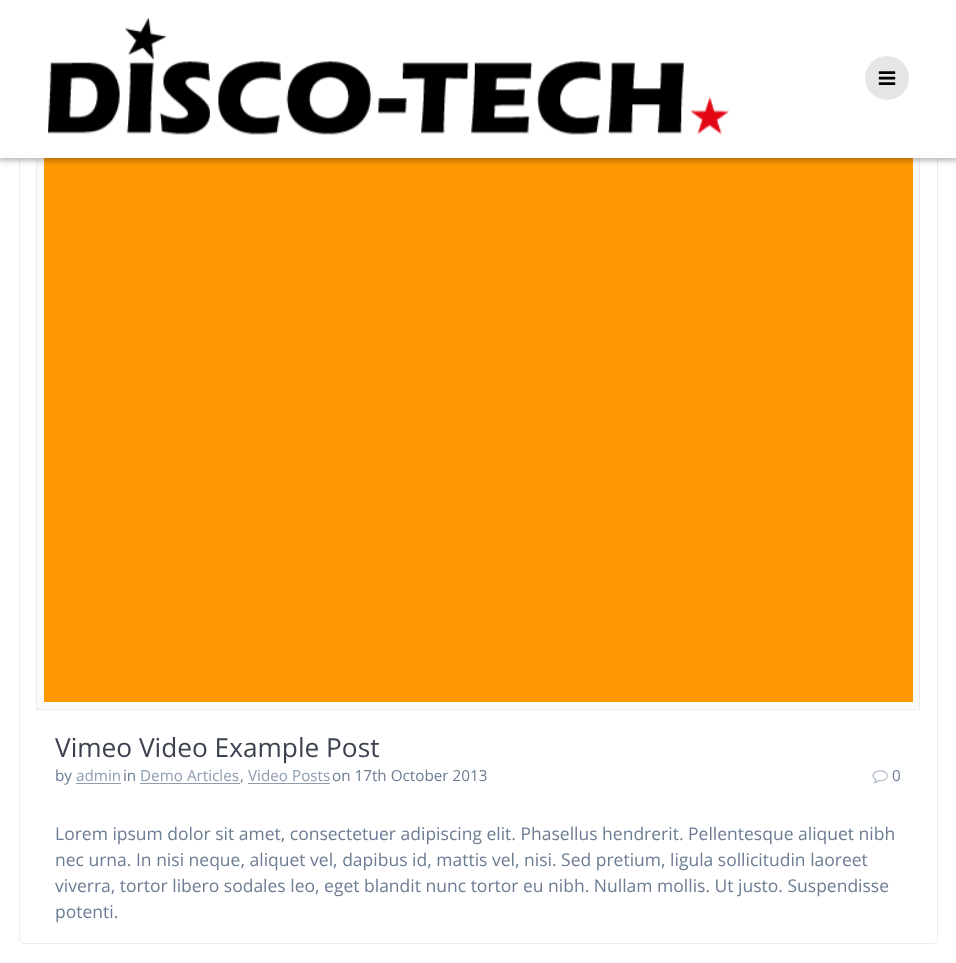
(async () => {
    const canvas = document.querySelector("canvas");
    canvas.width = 956;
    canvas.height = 963;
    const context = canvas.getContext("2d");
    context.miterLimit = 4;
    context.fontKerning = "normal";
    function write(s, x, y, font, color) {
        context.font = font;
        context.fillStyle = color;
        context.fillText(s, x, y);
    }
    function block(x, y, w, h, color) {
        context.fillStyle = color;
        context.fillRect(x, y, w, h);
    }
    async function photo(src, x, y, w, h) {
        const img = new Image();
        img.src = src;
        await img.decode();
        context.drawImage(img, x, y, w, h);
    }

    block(0, 0, 956, 963, "rgb(255, 255, 255)");
    context.beginPath();
    context.roundRect(19.5, 110.5, 918, 833, 4.5);
    context.strokeStyle = "rgb(236, 236, 236)";
    context.stroke();
    block(37, 158, 882, 551, "rgb(250, 250, 250)");
    context.strokeRect(36.5, 129.5, 883, 580);
    block(44, 158, 869, 544, "rgb(255, 152, 0)");
    context.fillStyle = "rgba(0, 0, 0, 0.33)";
    context.filter = "blur(3px)";
    context.beginPath();
    context.rect(-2, -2, 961, 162);
    context.fill();
    context.filter = "none";
    block(0, 0, 956, 158, "rgb(255, 255, 255)");
    await photo("media/1.png", 48, 18, 681, 117);
    context.fillStyle = "rgb(230, 230, 230)";
    context.beginPath();
    context.arc(887, 78, 22, 0, Math.PI * 2);
    context.fill();
    await photo("media/2.png", 878, 71, 18, 14);
    write("Vimeo Video Example Post", 55, 757, "26.25px Open Sans", "rgb(60, 66, 79)");
    write("by", 55, 781, "15.25px Open Sans", "rgb(107, 124, 147)");
    write("admin", 76, 781, "15.25px Open Sans", "rgb(142, 157, 174)");
    block(76, 783, 45, 1, "rgb(142, 157, 174)");
    write("in", 123, 781, "15.25px Open Sans", "rgb(107, 124, 147)");
    write("Demo Articles", 140, 781, "15.25px Open Sans", "rgb(142, 157, 174)");
    block(140, 783, 100, 1, "rgb(142, 157, 174)");
    write(",", 240, 781, "15.25px Open Sans", "rgb(107, 124, 147)");
    write("Video Posts", 248, 781, "15.25px Open Sans", "rgb(142, 157, 174)");
    block(248, 783, 82, 1, "rgb(142, 157, 174)");
    write("on 17th October 2013", 332, 781, "15.25px Open Sans", "rgb(107, 124, 147)");
    await photo("media/3.png", 872, 770, 16, 14);
    write("0", 892, 781, "15.25px Open Sans", "rgb(107, 124, 147)");
    write("Lorem ipsum dolor sit amet, consectetuer adipiscing elit. Phasellus hendrerit. Pellentesque aliquet nibh", 55, 840, "17.5px Open Sans", "rgb(107, 124, 147)");
    write("nec urna. In nisi neque, aliquet vel, dapibus id, mattis vel, nisi. Sed pretium, ligula sollicitudin laoreet", 55, 866, "17.5px Open Sans", "rgb(107, 124, 147)");
    write("viverra, tortor libero sodales leo, eget blandit nunc tortor eu nibh. Nullam mollis. Ut justo. Suspendisse", 55, 892, "17.5px Open Sans", "rgb(107, 124, 147)");
    write("potenti.", 55, 918, "17.5px Open Sans", "rgb(107, 124, 147)");
})();
